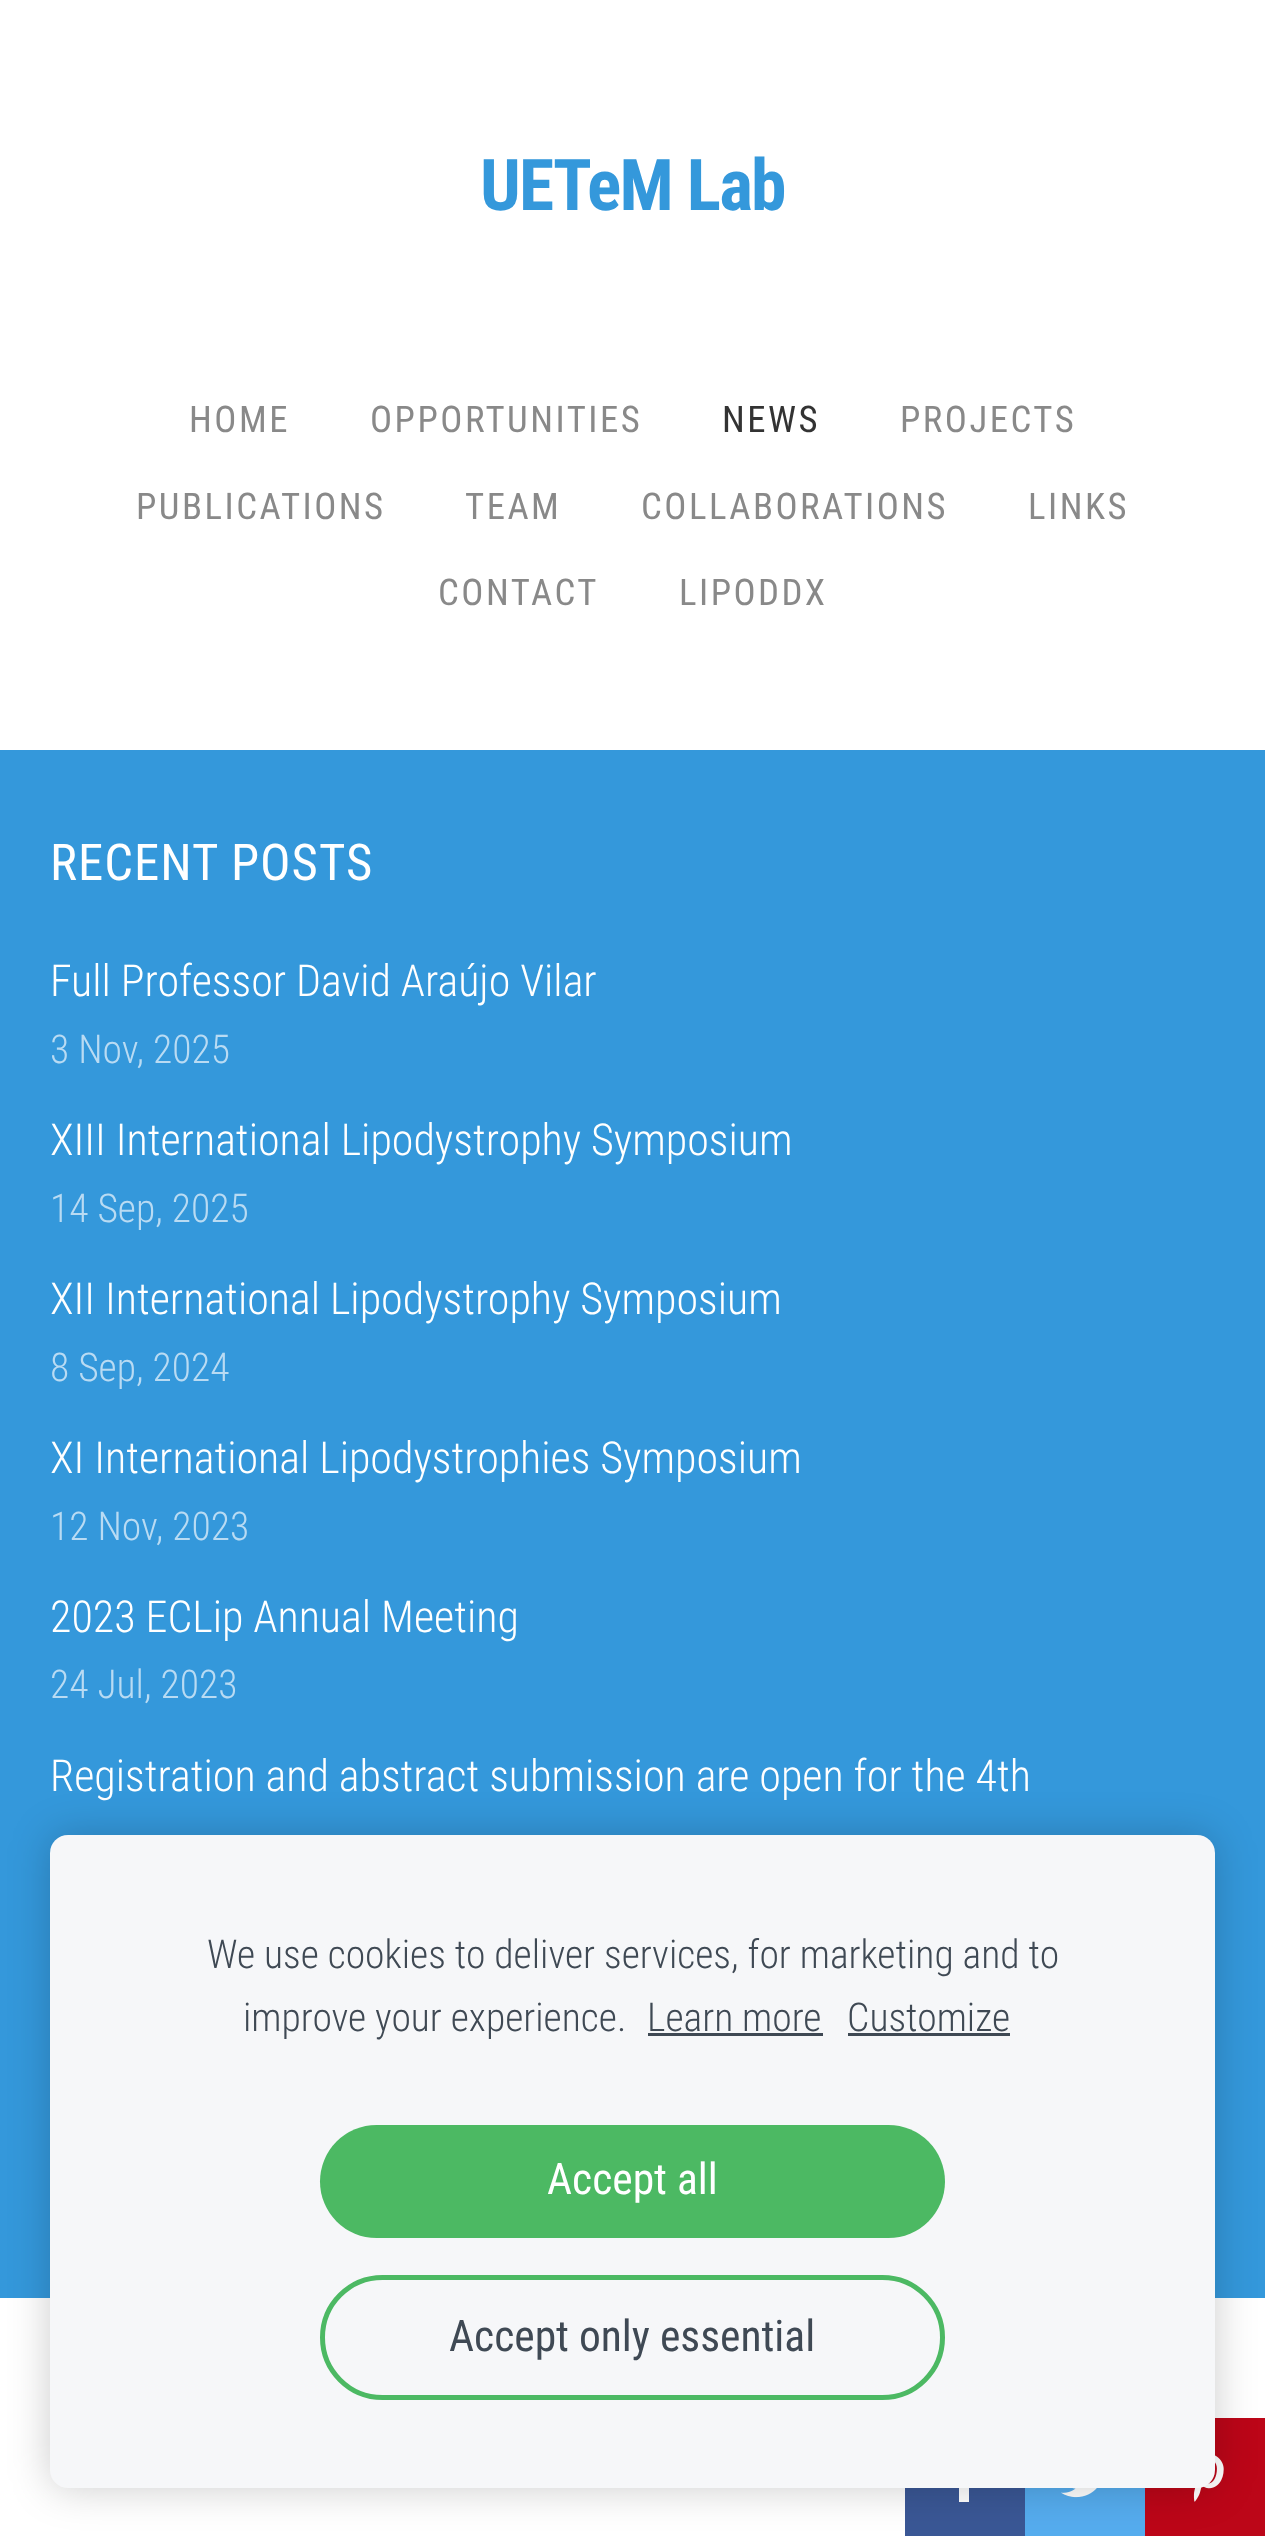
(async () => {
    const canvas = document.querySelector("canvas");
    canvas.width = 1265;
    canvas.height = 2536;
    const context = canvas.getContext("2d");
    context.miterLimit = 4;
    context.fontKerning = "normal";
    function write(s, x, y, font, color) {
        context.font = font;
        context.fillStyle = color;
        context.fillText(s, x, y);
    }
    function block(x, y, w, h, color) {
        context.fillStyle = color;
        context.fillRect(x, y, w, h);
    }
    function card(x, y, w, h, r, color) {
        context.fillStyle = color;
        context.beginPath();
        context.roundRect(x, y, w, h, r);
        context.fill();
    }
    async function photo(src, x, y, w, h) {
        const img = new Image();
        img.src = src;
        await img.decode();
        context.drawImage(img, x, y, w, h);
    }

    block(0, 0, 1265, 2536, "rgb(255, 255, 255)");
    context.letterSpacing = "-1.75px";
    write("UETeM Lab", 480, 210, "bold 71.5px Roboto Condensed", "rgb(52, 152, 219)");
    context.letterSpacing = "2.5px";
    write("HOME", 189, 432, "36.75px Roboto Condensed", "rgb(137, 137, 137)");
    write("OPPORTUNITIES", 370, 432, "36.75px Roboto Condensed", "rgb(137, 137, 137)");
    write("NEWS", 722, 432, "36.75px Roboto Condensed", "rgb(51, 51, 51)");
    write("PROJECTS", 900, 432, "36.75px Roboto Condensed", "rgb(137, 137, 137)");
    write("PUBLICATIONS", 136, 519, "36.75px Roboto Condensed", "rgb(137, 137, 137)");
    write("TEAM", 465, 519, "36.75px Roboto Condensed", "rgb(137, 137, 137)");
    write("COLLABORATIONS", 641, 519, "36.75px Roboto Condensed", "rgb(137, 137, 137)");
    write("LINKS", 1028, 519, "36.75px Roboto Condensed", "rgb(137, 137, 137)");
    write("CONTACT", 438, 605, "36.75px Roboto Condensed", "rgb(137, 137, 137)");
    write("LIPODDX", 679, 605, "36.75px Roboto Condensed", "rgb(137, 137, 137)");
    block(0, 750, 1265, 1548, "rgb(52, 152, 219)");
    context.letterSpacing = "1px";
    write("RECENT POSTS", 50, 880, "50.75px Roboto Condensed", "rgb(255, 255, 255)");
    context.letterSpacing = "0px";
    write("Full Professor David Araújo Vilar", 50, 996, "300 44px Roboto Condensed", "rgb(255, 255, 255)");
    write("3 Nov, 2025", 50, 1063, "300 39.6px Roboto Condensed", "rgb(185, 219, 243)");
    write("XIII International Lipodystrophy Symposium", 50, 1155, "300 44px Roboto Condensed", "rgb(255, 255, 255)");
    write("14 Sep, 2025", 50, 1222, "300 39.6px Roboto Condensed", "rgb(185, 219, 243)");
    write("XII International Lipodystrophy Symposium", 50, 1314, "300 44px Roboto Condensed", "rgb(255, 255, 255)");
    write("8 Sep, 2024", 50, 1381, "300 39.6px Roboto Condensed", "rgb(185, 219, 243)");
    write("XI International Lipodystrophies Symposium", 50, 1473, "300 44px Roboto Condensed", "rgb(255, 255, 255)");
    write("12 Nov, 2023", 50, 1540, "300 39.6px Roboto Condensed", "rgb(185, 219, 243)");
    write("2023 ECLip Annual Meeting", 50, 1632, "300 44px Roboto Condensed", "rgb(255, 255, 255)");
    write("24 Jul, 2023", 50, 1698, "300 39.6px Roboto Condensed", "rgb(185, 219, 243)");
    write("Registration and abstract submission are open for the 4th", 50, 1791, "300 44px Roboto Condensed", "rgb(255, 255, 255)");
    block(905, 2488, 120, 48, "rgb(58, 87, 149)");
    context.fillStyle = "rgb(255, 255, 255)";
    context.beginPath();
    context.moveTo(959, 2469);
    context.lineTo(954, 2469);
    context.lineTo(954, 2477);
    context.lineTo(959, 2477);
    context.lineTo(959, 2502);
    context.lineTo(969, 2502);
    context.lineTo(969, 2477);
    context.lineTo(975, 2477);
    context.lineTo(976, 2469);
    context.lineTo(969, 2469);
    context.bezierCurveTo(969, 2461, 968, 2462, 976, 2462);
    context.lineTo(976, 2453);
    context.bezierCurveTo(961, 2453, 959, 2453, 959, 2469);
    context.closePath();
    context.fill();
    block(1025, 2488, 120, 48, "rgb(85, 172, 238)");
    await photo("media/1.png", 1061, 2488, 36, 10);
    block(1145, 2418, 120, 118, "rgb(188, 6, 24)");
    await photo("media/2.png", 1193, 2455, 31, 47);
    context.fillStyle = "rgba(0, 0, 0, 0.2)";
    context.filter = "blur(21px)";
    context.beginPath();
    context.roundRect(50, 1835, 1165, 653, 18);
    context.fill();
    context.filter = "none";
    card(50, 1835, 1165, 653, 18, "rgb(246, 247, 249)");
    write("We use cookies to deliver services, for marketing and to", 207, 1968, "300 39.6px Roboto Condensed", "rgb(63, 73, 84)");
    write("improve your experience.", 243, 2031, "300 39.6px Roboto Condensed", "rgb(63, 73, 84)");
    write("Learn more", 647, 2031, "300 39.6px Roboto Condensed", "rgb(63, 73, 84)");
    block(648, 2033, 175, 3, "rgb(63, 73, 84)");
    write("Customize", 847, 2031, "300 39.6px Roboto Condensed", "rgb(63, 73, 84)");
    block(848, 2033, 162, 3, "rgb(63, 73, 84)");
    card(320, 2125, 625, 113, 56.5, "rgb(76, 185, 99)");
    write("Accept all", 547, 2194, "43.5px Roboto Condensed", "rgb(255, 255, 255)");
    context.beginPath();
    context.roundRect(322.5, 2277.5, 620, 120, 60);
    context.strokeStyle = "rgb(76, 185, 99)";
    context.lineWidth = 5;
    context.stroke();
    write("Accept only essential", 449, 2351, "43.5px Roboto Condensed", "rgb(63, 73, 84)");
})();
